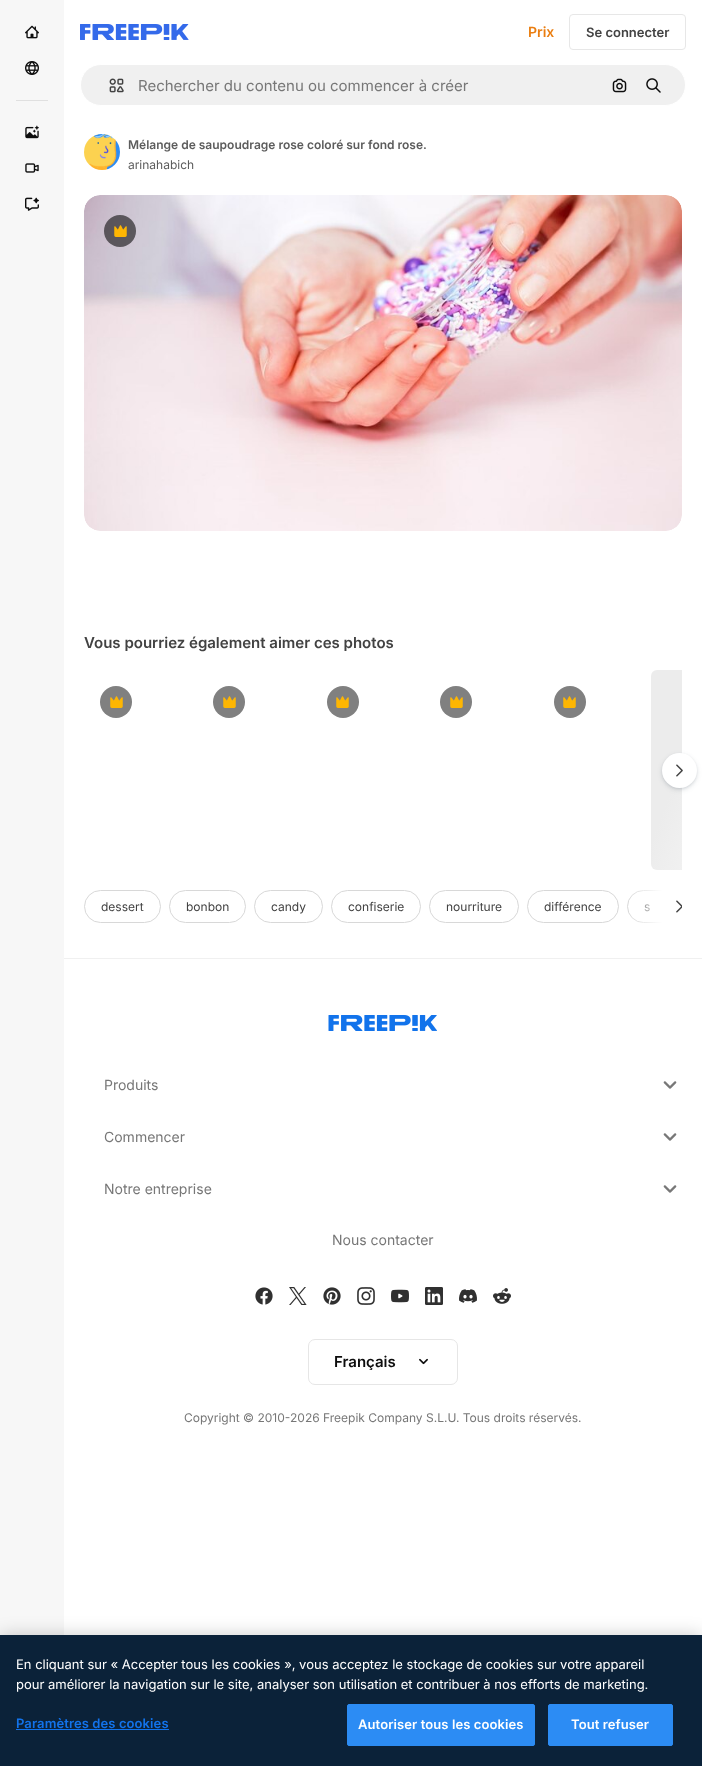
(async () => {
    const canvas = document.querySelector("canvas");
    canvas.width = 702;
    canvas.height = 1766;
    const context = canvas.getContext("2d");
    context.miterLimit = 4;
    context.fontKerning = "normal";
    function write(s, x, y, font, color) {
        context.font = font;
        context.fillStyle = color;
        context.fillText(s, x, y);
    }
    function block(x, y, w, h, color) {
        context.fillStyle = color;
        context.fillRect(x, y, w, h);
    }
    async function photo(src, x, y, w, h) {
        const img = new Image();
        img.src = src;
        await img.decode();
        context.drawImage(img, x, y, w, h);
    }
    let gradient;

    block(0, 0, 702, 1766, "rgb(255, 255, 255)");
    block(0, 0, 64, 1635, "rgb(247, 247, 247)");
    await photo("media/1.png", 25, 25, 14, 14);
    await photo("media/2.png", 25, 61, 14, 14);
    block(16, 100, 32, 1, "rgb(224, 224, 224)");
    await photo("media/3.png", 25, 125, 14, 14);
    await photo("media/4.png", 25, 163, 14, 10);
    await photo("media/5.png", 25, 197, 14, 14);
    await photo("media/6.png", 80, 24, 109, 16);
    write("Prix", 528, 37, "600 14px Inter", "rgb(234, 126, 17)");
    context.beginPath();
    context.roundRect(569.5, 14.5, 116, 35, 3.5);
    context.strokeStyle = "rgb(231, 231, 231)";
    context.stroke();
    write("Se connecter", 586, 37, "600 13px Inter", "rgb(66, 66, 66)");
    context.fillStyle = "rgb(240, 240, 240)";
    context.beginPath();
    context.roundRect(80.5, 64.5, 605, 41, 20.5);
    context.fill();
    context.strokeStyle = "rgb(255, 255, 255)";
    context.stroke();
    await photo("media/7.png", 109, 78, 15, 15);
    write("Rechercher du contenu ou commencer à créer", 138, 91, "15px Inter", "rgb(119, 119, 119)");
    await photo("media/8.png", 612, 78, 15, 15);
    await photo("media/9.png", 646, 78, 15, 15);
    await photo("media/10.png", 84, 134, 36, 36);
    write("Mélange de saupoudrage rose coloré sur fond rose.", 128, 149, "600 12px Inter", "rgb(92, 92, 92)");
    write("arinahabich", 128, 169, "12px Inter", "rgb(92, 92, 92)");
    await photo("media/11.png", 84, 195, 598, 336);
    context.fillStyle = "rgba(13, 13, 13, 0.6)";
    context.beginPath();
    context.arc(120, 231, 16, 0, Math.PI * 2);
    context.fill();
    await photo("media/12.png", 114, 225, 13, 12);
    write("Vous pourriez également aimer ces photos", 84, 648, "600 15px Inter", "rgb(66, 66, 66)");
    context.fillStyle = "rgb(128, 128, 128)";
    context.beginPath();
    context.arc(116, 702, 16, 0, Math.PI * 2);
    context.fill();
    await photo("media/13.png", 110, 696, 13, 12);
    context.beginPath();
    context.arc(229, 702, 16, 0, Math.PI * 2);
    context.fill();
    await photo("media/13.png", 223, 696, 13, 12);
    context.beginPath();
    context.arc(343, 702, 16, 0, Math.PI * 2);
    context.fill();
    await photo("media/13.png", 336, 696, 13, 12);
    context.beginPath();
    context.arc(456, 702, 16, 0, Math.PI * 2);
    context.fill();
    await photo("media/13.png", 450, 696, 13, 12);
    context.beginPath();
    context.arc(570, 702, 16, 0, Math.PI * 2);
    context.fill();
    await photo("media/13.png", 563, 696, 13, 12);
    gradient = context.createLinearGradient(661, 644, 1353, 896);
    gradient.addColorStop(0.08, "rgb(236, 236, 236)");
    gradient.addColorStop(0.18, "rgb(245, 245, 245)");
    gradient.addColorStop(0.33, "rgb(236, 236, 236)");
    context.fillStyle = gradient;
    context.beginPath();
    context.roundRect(651, 670, 31, 200, [6, 0, 0, 6]);
    context.fill();
    context.fillStyle = "rgba(55, 73, 87, 0.15)";
    context.filter = "blur(2.5px)";
    context.beginPath();
    context.roundRect(662, 755, 35, 35, 17.5);
    context.fill();
    context.filter = "none";
    context.fillStyle = "rgba(55, 73, 87, 0.1)";
    context.filter = "blur(1px)";
    context.beginPath();
    context.roundRect(662, 754, 35, 35, 17.5);
    context.fill();
    context.filter = "none";
    context.fillStyle = "rgb(255, 255, 255)";
    context.beginPath();
    context.arc(679.5, 770.5, 17.5, 0, Math.PI * 2);
    context.fill();
    await photo("media/14.png", 676, 764, 7, 13);
    context.beginPath();
    context.roundRect(84.5, 890.5, 76, 32, 16);
    context.strokeStyle = "rgb(216, 216, 216)";
    context.stroke();
    write("dessert", 101, 911, "12px Inter", "rgb(66, 66, 66)");
    context.beginPath();
    context.roundRect(169.5, 890.5, 76, 32, 16);
    context.stroke();
    write("bonbon", 186, 911, "12px Inter", "rgb(66, 66, 66)");
    context.beginPath();
    context.roundRect(254.5, 890.5, 68, 32, 16);
    context.stroke();
    write("candy", 271, 911, "12px Inter", "rgb(66, 66, 66)");
    context.beginPath();
    context.roundRect(331.5, 890.5, 89, 32, 16);
    context.stroke();
    write("confiserie", 348, 911, "12px Inter", "rgb(66, 66, 66)");
    context.beginPath();
    context.roundRect(429.5, 890.5, 89, 32, 16);
    context.stroke();
    write("nourriture", 446, 911, "12px Inter", "rgb(66, 66, 66)");
    context.beginPath();
    context.roundRect(527.5, 890.5, 91, 32, 16);
    context.stroke();
    write("différence", 544, 911, "12px Inter", "rgb(66, 66, 66)");
    context.save();
    context.beginPath();
    context.rect(84, 890, 598, 33);
    context.clip();
    context.beginPath();
    context.roundRect(627.5, 890.5, 64, 32, 16);
    context.stroke();
    context.restore();
    write("s", 644, 911, "12px Inter", "rgb(66, 66, 66)");
    block(662, 890, 20, 33, "rgb(255, 255, 255)");
    gradient = context.createLinearGradient(662, 907, 627, 907);
    gradient.addColorStop(0, "rgb(255, 255, 255)");
    gradient.addColorStop(1, "rgba(255, 255, 255, 0)");
    context.fillStyle = gradient;
    context.fillRect(630, 890, 32, 33);
    await photo("media/15.png", 676, 900, 6, 13);
    block(64, 958, 638, 1, "rgb(240, 240, 240)");
    await photo("media/16.png", 328, 1015, 109, 16);
    write("Produits", 104, 1090, "14px Inter", "rgb(119, 119, 119)");
    await photo("media/17.png", 663, 1081, 14, 8);
    write("Commencer", 104, 1142, "14px Inter", "rgb(119, 119, 119)");
    await photo("media/17.png", 663, 1133, 14, 8);
    write("Notre entreprise", 104, 1194, "14px Inter", "rgb(119, 119, 119)");
    await photo("media/17.png", 663, 1185, 14, 8);
    write("Nous contacter", 332, 1245, "14px Inter", "rgb(119, 119, 119)");
    await photo("media/18.png", 255, 1287, 18, 18);
    await photo("media/19.png", 289, 1287, 18, 18);
    await photo("media/20.png", 323, 1287, 18, 18);
    await photo("media/21.png", 357, 1287, 18, 18);
    await photo("media/22.png", 391, 1289, 18, 14);
    await photo("media/23.png", 425, 1287, 18, 18);
    await photo("media/24.png", 459, 1289, 18, 14);
    await photo("media/25.png", 493, 1288, 18, 16);
    context.beginPath();
    context.roundRect(308.5, 1339.5, 149, 45, 6.5);
    context.strokeStyle = "rgb(230, 230, 230)";
    context.stroke();
    write("Français", 334, 1367, "600 15px Inter", "rgb(13, 13, 13)");
    await photo("media/26.png", 419, 1358, 9, 7);
    write("Copyright © 2010-", 184, 1422, "12px Inter", "rgb(119, 119, 119)");
    write("2026 Freepik Company S.L.U. Tous droits réservés.", 290, 1422, "12px Inter", "rgb(119, 119, 119)");
    context.fillStyle = "rgba(0, 0, 0, 0.2)";
    context.filter = "blur(9px)";
    context.beginPath();
    context.rect(0, 1635, 702, 131);
    context.fill();
    context.filter = "none";
    block(0, 1635, 702, 131, "rgb(11, 34, 57)");
    write("En cliquant sur « Accepter tous les cookies », vous acceptez le stockage de cookies sur votre appareil", 16, 1669, "13px Inter", "rgb(255, 255, 255)");
    write("pour améliorer la navigation sur le site, analyser son utilisation et contribuer à nos efforts de marketing.", 16, 1689, "13px Inter", "rgb(255, 255, 255)");
    context.letterSpacing = "0.1px";
    write("Paramètres des cookies", 16, 1728, "600 13px Inter", "rgb(18, 115, 235)");
    block(16, 1729, 153, 1, "rgb(18, 115, 235)");
    context.fillStyle = "rgb(44, 140, 244)";
    context.beginPath();
    context.roundRect(347.5, 1704.5, 187, 41, 1.5);
    context.fill();
    context.strokeStyle = "rgb(44, 140, 244)";
    context.stroke();
    write("Autoriser tous les cookies", 358, 1729, "600 13px Inter", "rgb(255, 255, 255)");
    context.fillStyle = "rgb(44, 140, 244)";
    context.beginPath();
    context.roundRect(548.5, 1704.5, 124, 41, 1.5);
    context.fill();
    context.stroke();
    write("Tout refuser", 571, 1729, "600 13px Inter", "rgb(255, 255, 255)");
})();
